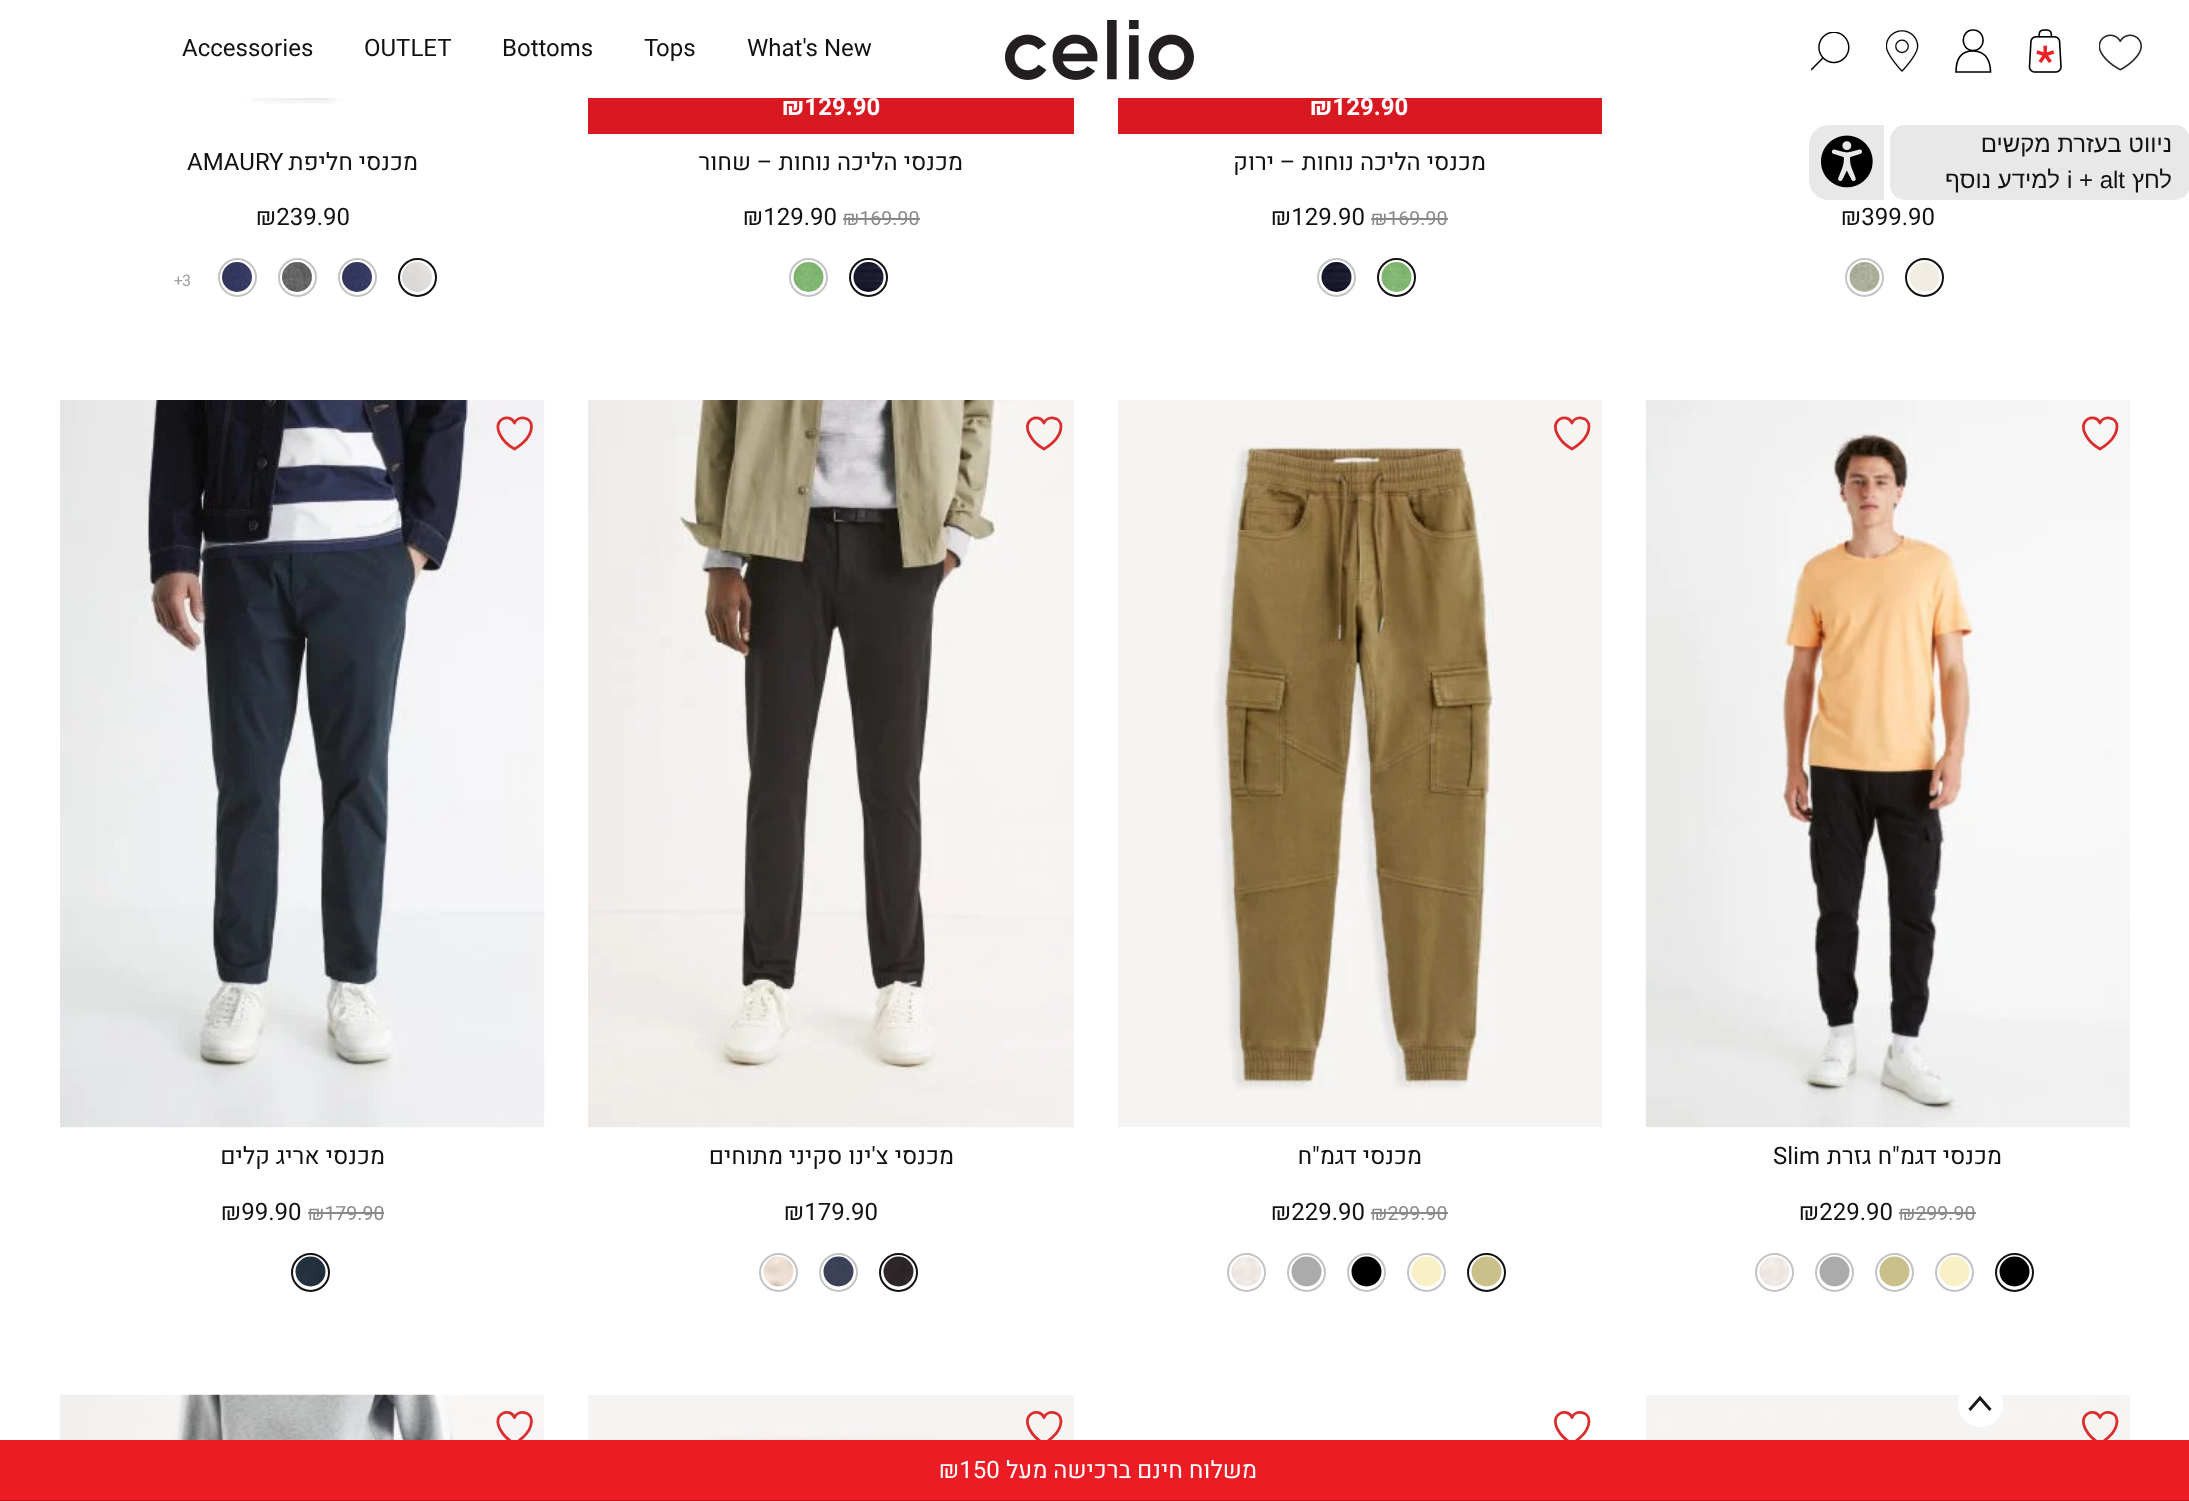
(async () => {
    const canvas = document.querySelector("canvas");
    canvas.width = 2189;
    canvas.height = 1501;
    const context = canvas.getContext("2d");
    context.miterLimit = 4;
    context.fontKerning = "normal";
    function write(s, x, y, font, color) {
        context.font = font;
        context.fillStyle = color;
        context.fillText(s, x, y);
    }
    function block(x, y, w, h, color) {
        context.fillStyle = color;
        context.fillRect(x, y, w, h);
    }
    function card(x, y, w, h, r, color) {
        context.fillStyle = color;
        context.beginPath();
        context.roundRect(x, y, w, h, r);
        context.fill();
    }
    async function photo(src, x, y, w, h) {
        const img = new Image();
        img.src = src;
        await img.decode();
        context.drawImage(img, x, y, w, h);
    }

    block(0, 0, 2189, 1501, "rgb(255, 255, 255)");
    card(1890, 125, 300, 75, 15, "rgb(232, 232, 232)");
    context.direction = "rtl";
    write("ניווט בעזרת מקשים", 2172, 152, "24px Liberation Sans", "rgb(18, 18, 18)");
    write("לחץ", 2172, 188, "24px Liberation Sans", "rgb(18, 18, 18)");
    context.direction = "ltr";
    write("i + alt", 2067, 188, "24px Liberation Sans", "rgb(18, 18, 18)");
    context.direction = "rtl";
    write("למידע נוסף", 2060, 188, "24px Liberation Sans", "rgb(18, 18, 18)");
    context.fillStyle = "rgb(232, 232, 232)";
    context.beginPath();
    context.roundRect(1809, 125, 75, 75, [20, 0, 0, 20]);
    context.fill();
    await photo("media/1.png", 1820, 135, 53, 53);
    await photo("media/2.png", 2099, 34, 43, 37);
    await photo("media/3.png", 2028, 29, 34, 44);
    context.beginPath();
    context.moveTo(1973, 50.5);
    context.bezierCurveTo(1986.5, 50.5, 1986.5, 30, 1973, 30);
    context.bezierCurveTo(1960, 30, 1960, 50.5, 1973, 50.5);
    context.closePath();
    context.moveTo(1973, 51);
    context.bezierCurveTo(1958, 51, 1956, 63.5, 1956, 72);
    context.lineTo(1990.5, 72);
    context.bezierCurveTo(1990.5, 63.5, 1987.5, 51, 1973, 51);
    context.closePath();
    context.strokeStyle = "rgb(0, 0, 0)";
    context.lineWidth = 1.6;
    context.stroke();
    await photo("media/4.png", 1886, 30, 33, 42);
    await photo("media/5.png", 1811, 32, 39, 39);
    await photo("media/6.png", 1005, 20, 189, 60);
    context.direction = "ltr";
    write("What's New", 747, 56, "24px Heebo", "rgb(18, 18, 18)");
    write("Tops", 644, 56, "24px Heebo", "rgb(18, 18, 18)");
    write("Bottoms", 502, 56, "24px Heebo", "rgb(18, 18, 18)");
    write("OUTLET", 364, 56, "24px Heebo", "rgb(18, 18, 18)");
    write("Accessories", 182, 56, "24px Heebo", "rgb(18, 18, 18)");
    write("₪399.90", 1841, 225, "24px Heebo", "rgb(18, 18, 18)");
    context.beginPath();
    context.arc(1924.5, 277.5, 18.5, 0, Math.PI * 2);
    context.strokeStyle = "rgb(18, 18, 18)";
    context.lineWidth = 2;
    context.stroke();
    await photo("media/7.png", 1909, 262, 31, 30);
    context.beginPath();
    context.arc(1864.5, 277.5, 18.5, 0, Math.PI * 2);
    context.strokeStyle = "rgb(196, 196, 196)";
    context.stroke();
    await photo("media/8.png", 1849, 262, 31, 30);
    block(1118, 98, 484, 36, "rgb(216, 25, 33)");
    write("₪129.90", 1310, 115, "bold 24px Heebo", "rgb(255, 255, 255)");
    context.direction = "rtl";
    write("מכנסי הליכה נוחות – ירוק", 1486, 170, "24px Heebo", "rgb(18, 18, 18)");
    context.direction = "ltr";
    write("₪169.90", 1371, 225, "19.5px Heebo", "rgb(137, 137, 137)");
    block(1371, 218, 77, 2, "rgb(137, 137, 137)");
    write("₪129.90", 1271, 225, "24px Heebo", "rgb(18, 18, 18)");
    context.beginPath();
    context.arc(1396.5, 277.5, 18.5, 0, Math.PI * 2);
    context.strokeStyle = "rgb(18, 18, 18)";
    context.stroke();
    await photo("media/9.png", 1381, 262, 31, 30);
    context.beginPath();
    context.arc(1336.5, 277.5, 18.5, 0, Math.PI * 2);
    context.strokeStyle = "rgb(196, 196, 196)";
    context.stroke();
    await photo("media/10.png", 1321, 262, 31, 30);
    block(588, 98, 486, 36, "rgb(216, 25, 33)");
    write("₪129.90", 782, 115, "bold 24px Heebo", "rgb(255, 255, 255)");
    context.direction = "rtl";
    write("מכנסי הליכה נוחות – שחור", 963, 170, "24px Heebo", "rgb(18, 18, 18)");
    context.direction = "ltr";
    write("₪169.90", 843, 225, "19.5px Heebo", "rgb(137, 137, 137)");
    block(843, 218, 77, 2, "rgb(137, 137, 137)");
    write("₪129.90", 743, 225, "24px Heebo", "rgb(18, 18, 18)");
    context.beginPath();
    context.arc(868.5, 277.5, 18.5, 0, Math.PI * 2);
    context.strokeStyle = "rgb(18, 18, 18)";
    context.stroke();
    await photo("media/11.png", 853, 262, 31, 30);
    context.beginPath();
    context.arc(808.5, 277.5, 18.5, 0, Math.PI * 2);
    context.strokeStyle = "rgb(196, 196, 196)";
    context.stroke();
    await photo("media/12.png", 793, 262, 31, 30);
    await photo("media/13.png", 240, 98, 107, 6);
    context.direction = "rtl";
    write("מכנסי חליפת", 418, 170, "24px Heebo", "rgb(18, 18, 18)");
    context.direction = "ltr";
    write("AMAURY", 187, 170, "24px Heebo", "rgb(18, 18, 18)");
    write("₪239.90", 256, 225, "24px Heebo", "rgb(18, 18, 18)");
    context.beginPath();
    context.arc(417.5, 277.5, 18.5, 0, Math.PI * 2);
    context.strokeStyle = "rgb(18, 18, 18)";
    context.stroke();
    await photo("media/14.png", 402, 262, 30, 30);
    context.beginPath();
    context.arc(357.5, 277.5, 18.5, 0, Math.PI * 2);
    context.strokeStyle = "rgb(196, 196, 196)";
    context.stroke();
    await photo("media/15.png", 342, 262, 30, 30);
    context.beginPath();
    context.arc(297.5, 277.5, 18.5, 0, Math.PI * 2);
    context.stroke();
    await photo("media/16.png", 282, 262, 30, 30);
    context.beginPath();
    context.arc(237.5, 277.5, 18.5, 0, Math.PI * 2);
    context.stroke();
    await photo("media/17.png", 222, 262, 30, 30);
    write("3", 182, 286, "16px Heebo", "rgb(158, 158, 158)");
    write("+", 174, 286, "16px Heebo", "rgb(158, 158, 158)");
    await photo("media/18.png", 1645, 400, 485, 728);
    context.beginPath();
    context.moveTo(2117, 426.5);
    context.bezierCurveTo(2117, 417, 2103.5, 415, 2100, 423);
    context.bezierCurveTo(2095.5, 412.5, 2076.5, 419, 2086, 435.5);
    context.bezierCurveTo(2089, 441, 2094.5, 446, 2100, 449);
    context.bezierCurveTo(2100, 449, 2117, 440, 2117, 426.5);
    context.closePath();
    context.strokeStyle = "rgb(218, 46, 46)";
    context.lineWidth = 2.8;
    context.lineCap = "round";
    context.lineJoin = "round";
    context.stroke();
    context.direction = "rtl";
    write("מכנסי דגמ\"ח גזרת", 2002, 1164, "24px Heebo", "rgb(18, 18, 18)");
    context.direction = "ltr";
    write("Slim", 1773, 1164, "24px Heebo", "rgb(18, 18, 18)");
    write("₪299.90", 1899, 1220, "19.5px Heebo", "rgb(137, 137, 137)");
    block(1899, 1212, 77, 2, "rgb(137, 137, 137)");
    write("₪229.90", 1799, 1220, "24px Heebo", "rgb(18, 18, 18)");
    context.beginPath();
    context.arc(2014.5, 1272.5, 18.5, 0, Math.PI * 2);
    context.strokeStyle = "rgb(18, 18, 18)";
    context.lineWidth = 2;
    context.stroke();
    await photo("media/19.png", 1999, 1256, 31, 31);
    context.beginPath();
    context.arc(1954.5, 1272.5, 18.5, 0, Math.PI * 2);
    context.strokeStyle = "rgb(196, 196, 196)";
    context.stroke();
    await photo("media/20.png", 1939, 1256, 31, 31);
    context.beginPath();
    context.arc(1894.5, 1272.5, 18.5, 0, Math.PI * 2);
    context.stroke();
    await photo("media/21.png", 1879, 1256, 31, 31);
    context.beginPath();
    context.arc(1834.5, 1272.5, 18.5, 0, Math.PI * 2);
    context.stroke();
    await photo("media/22.png", 1819, 1256, 31, 31);
    context.beginPath();
    context.arc(1774.5, 1272.5, 18.5, 0, Math.PI * 2);
    context.stroke();
    await photo("media/23.png", 1759, 1256, 31, 31);
    await photo("media/24.png", 1118, 400, 484, 727);
    context.beginPath();
    context.moveTo(1589, 426.5);
    context.bezierCurveTo(1589, 417, 1575.5, 415, 1572, 423);
    context.bezierCurveTo(1567.5, 412.5, 1548.5, 419, 1558, 435.5);
    context.bezierCurveTo(1561, 441, 1566.5, 446, 1572, 449);
    context.bezierCurveTo(1572, 449, 1589, 440, 1589, 426.5);
    context.closePath();
    context.strokeStyle = "rgb(218, 46, 46)";
    context.lineWidth = 2.8;
    context.stroke();
    context.direction = "rtl";
    write("מכנסי דגמ\"ח", 1422, 1164, "24px Heebo", "rgb(18, 18, 18)");
    context.direction = "ltr";
    write("₪299.90", 1371, 1220, "19.5px Heebo", "rgb(137, 137, 137)");
    block(1371, 1212, 77, 2, "rgb(137, 137, 137)");
    write("₪229.90", 1271, 1220, "24px Heebo", "rgb(18, 18, 18)");
    context.beginPath();
    context.arc(1486.5, 1272.5, 18.5, 0, Math.PI * 2);
    context.strokeStyle = "rgb(18, 18, 18)";
    context.lineWidth = 2;
    context.stroke();
    await photo("media/25.png", 1471, 1256, 31, 31);
    context.beginPath();
    context.arc(1426.5, 1272.5, 18.5, 0, Math.PI * 2);
    context.strokeStyle = "rgb(196, 196, 196)";
    context.stroke();
    await photo("media/20.png", 1411, 1256, 31, 31);
    context.beginPath();
    context.arc(1366.5, 1272.5, 18.5, 0, Math.PI * 2);
    context.stroke();
    await photo("media/26.png", 1351, 1256, 31, 31);
    context.beginPath();
    context.arc(1306.5, 1272.5, 18.5, 0, Math.PI * 2);
    context.stroke();
    await photo("media/27.png", 1291, 1256, 31, 31);
    context.beginPath();
    context.arc(1246.5, 1272.5, 18.5, 0, Math.PI * 2);
    context.stroke();
    await photo("media/28.png", 1231, 1256, 31, 31);
    await photo("media/29.png", 588, 400, 486, 728);
    context.beginPath();
    context.moveTo(1061, 426.5);
    context.bezierCurveTo(1061, 417, 1047.5, 415, 1044, 423);
    context.bezierCurveTo(1039.5, 412.5, 1020.5, 419, 1030, 435.5);
    context.bezierCurveTo(1033, 441, 1038.5, 446, 1044, 449);
    context.bezierCurveTo(1044, 449, 1061, 440, 1061, 426.5);
    context.closePath();
    context.strokeStyle = "rgb(218, 46, 46)";
    context.lineWidth = 2.8;
    context.stroke();
    context.direction = "rtl";
    write("מכנסי צ'ינו סקיני מתוחים", 954, 1164, "24px Heebo", "rgb(18, 18, 18)");
    context.direction = "ltr";
    write("₪179.90", 784, 1220, "24px Heebo", "rgb(18, 18, 18)");
    context.beginPath();
    context.arc(898.5, 1272.5, 18.5, 0, Math.PI * 2);
    context.strokeStyle = "rgb(18, 18, 18)";
    context.lineWidth = 2;
    context.stroke();
    await photo("media/30.png", 883, 1256, 31, 31);
    context.beginPath();
    context.arc(838.5, 1272.5, 18.5, 0, Math.PI * 2);
    context.strokeStyle = "rgb(196, 196, 196)";
    context.stroke();
    await photo("media/31.png", 823, 1256, 31, 31);
    context.beginPath();
    context.arc(778.5, 1272.5, 18.5, 0, Math.PI * 2);
    context.stroke();
    await photo("media/32.png", 763, 1256, 31, 31);
    await photo("media/33.png", 60, 400, 485, 728);
    context.beginPath();
    context.moveTo(531.5, 426.5);
    context.bezierCurveTo(531.5, 417, 518, 415, 514.5, 423);
    context.bezierCurveTo(510, 412.5, 491, 419, 500.5, 435.5);
    context.bezierCurveTo(503.5, 441, 509, 446, 514.5, 449);
    context.bezierCurveTo(514.5, 449, 531.5, 440, 531.5, 426.5);
    context.closePath();
    context.strokeStyle = "rgb(218, 46, 46)";
    context.lineWidth = 2.8;
    context.stroke();
    context.direction = "rtl";
    write("מכנסי אריג קלים", 385, 1164, "24px Heebo", "rgb(18, 18, 18)");
    context.direction = "ltr";
    write("₪179.90", 308, 1220, "19.5px Heebo", "rgb(137, 137, 137)");
    block(308, 1212, 76, 2, "rgb(137, 137, 137)");
    write("₪99.90", 221, 1220, "24px Heebo", "rgb(18, 18, 18)");
    context.beginPath();
    context.arc(310.5, 1272.5, 18.5, 0, Math.PI * 2);
    context.strokeStyle = "rgb(18, 18, 18)";
    context.lineWidth = 2;
    context.stroke();
    await photo("media/34.png", 295, 1256, 31, 31);
    await photo("media/35.png", 1646, 1395, 484, 45);
    context.beginPath();
    context.moveTo(2117, 1421);
    context.bezierCurveTo(2117, 1411.5, 2103.5, 1409.5, 2100, 1417.5);
    context.bezierCurveTo(2095.5, 1407, 2076.5, 1413.5, 2086, 1430);
    context.bezierCurveTo(2089, 1435.5, 2094.5, 1440.5, 2100, 1443.5);
    context.bezierCurveTo(2100, 1443.5, 2117, 1434.5, 2117, 1421);
    context.closePath();
    context.strokeStyle = "rgb(218, 46, 46)";
    context.lineWidth = 2.8;
    context.stroke();
    context.beginPath();
    context.moveTo(1589, 1421);
    context.bezierCurveTo(1589, 1411.5, 1575.5, 1409.5, 1572, 1417.5);
    context.bezierCurveTo(1567.5, 1407, 1548.5, 1413.5, 1558, 1430);
    context.bezierCurveTo(1561, 1435.5, 1566.5, 1440.5, 1572, 1443.5);
    context.bezierCurveTo(1572, 1443.5, 1589, 1434.5, 1589, 1421);
    context.closePath();
    context.stroke();
    await photo("media/36.png", 588, 1395, 486, 45);
    context.beginPath();
    context.moveTo(1061, 1421);
    context.bezierCurveTo(1061, 1411.5, 1047.5, 1409.5, 1044, 1417.5);
    context.bezierCurveTo(1039.5, 1407, 1020.5, 1413.5, 1030, 1430);
    context.bezierCurveTo(1033, 1435.5, 1038.5, 1440.5, 1044, 1443.5);
    context.bezierCurveTo(1044, 1443.5, 1061, 1434.5, 1061, 1421);
    context.closePath();
    context.stroke();
    await photo("media/37.png", 60, 1394, 484, 46);
    context.beginPath();
    context.moveTo(531.5, 1421);
    context.bezierCurveTo(531.5, 1411.5, 518, 1409.5, 514.5, 1417.5);
    context.bezierCurveTo(510, 1407, 491, 1413.5, 500.5, 1430);
    context.bezierCurveTo(503.5, 1435.5, 509, 1440.5, 514.5, 1443.5);
    context.bezierCurveTo(514.5, 1443.5, 531.5, 1434.5, 531.5, 1421);
    context.closePath();
    context.stroke();
    context.fillStyle = "rgb(255, 255, 255)";
    context.beginPath();
    context.arc(1980.5, 1404.5, 22.5, 0, Math.PI * 2);
    context.fill();
    context.beginPath();
    context.moveTo(1969.5, 1410);
    context.lineTo(1980, 1398);
    context.lineTo(1990.5, 1410);
    context.strokeStyle = "rgb(24, 24, 24)";
    context.lineWidth = 3;
    context.lineCap = "butt";
    context.lineJoin = "miter";
    context.stroke();
    block(0, 1440, 2189, 60, "rgb(236, 28, 36)");
    block(0, 1500, 2189, 1, "rgb(189, 22, 29)");
    context.direction = "rtl";
    write("משלוח חינם ברכישה מעל", 1257, 1478, "24px Heebo", "rgb(255, 255, 255)");
    context.direction = "ltr";
    write("₪150", 939, 1478, "24px Heebo", "rgb(255, 255, 255)");
})();
